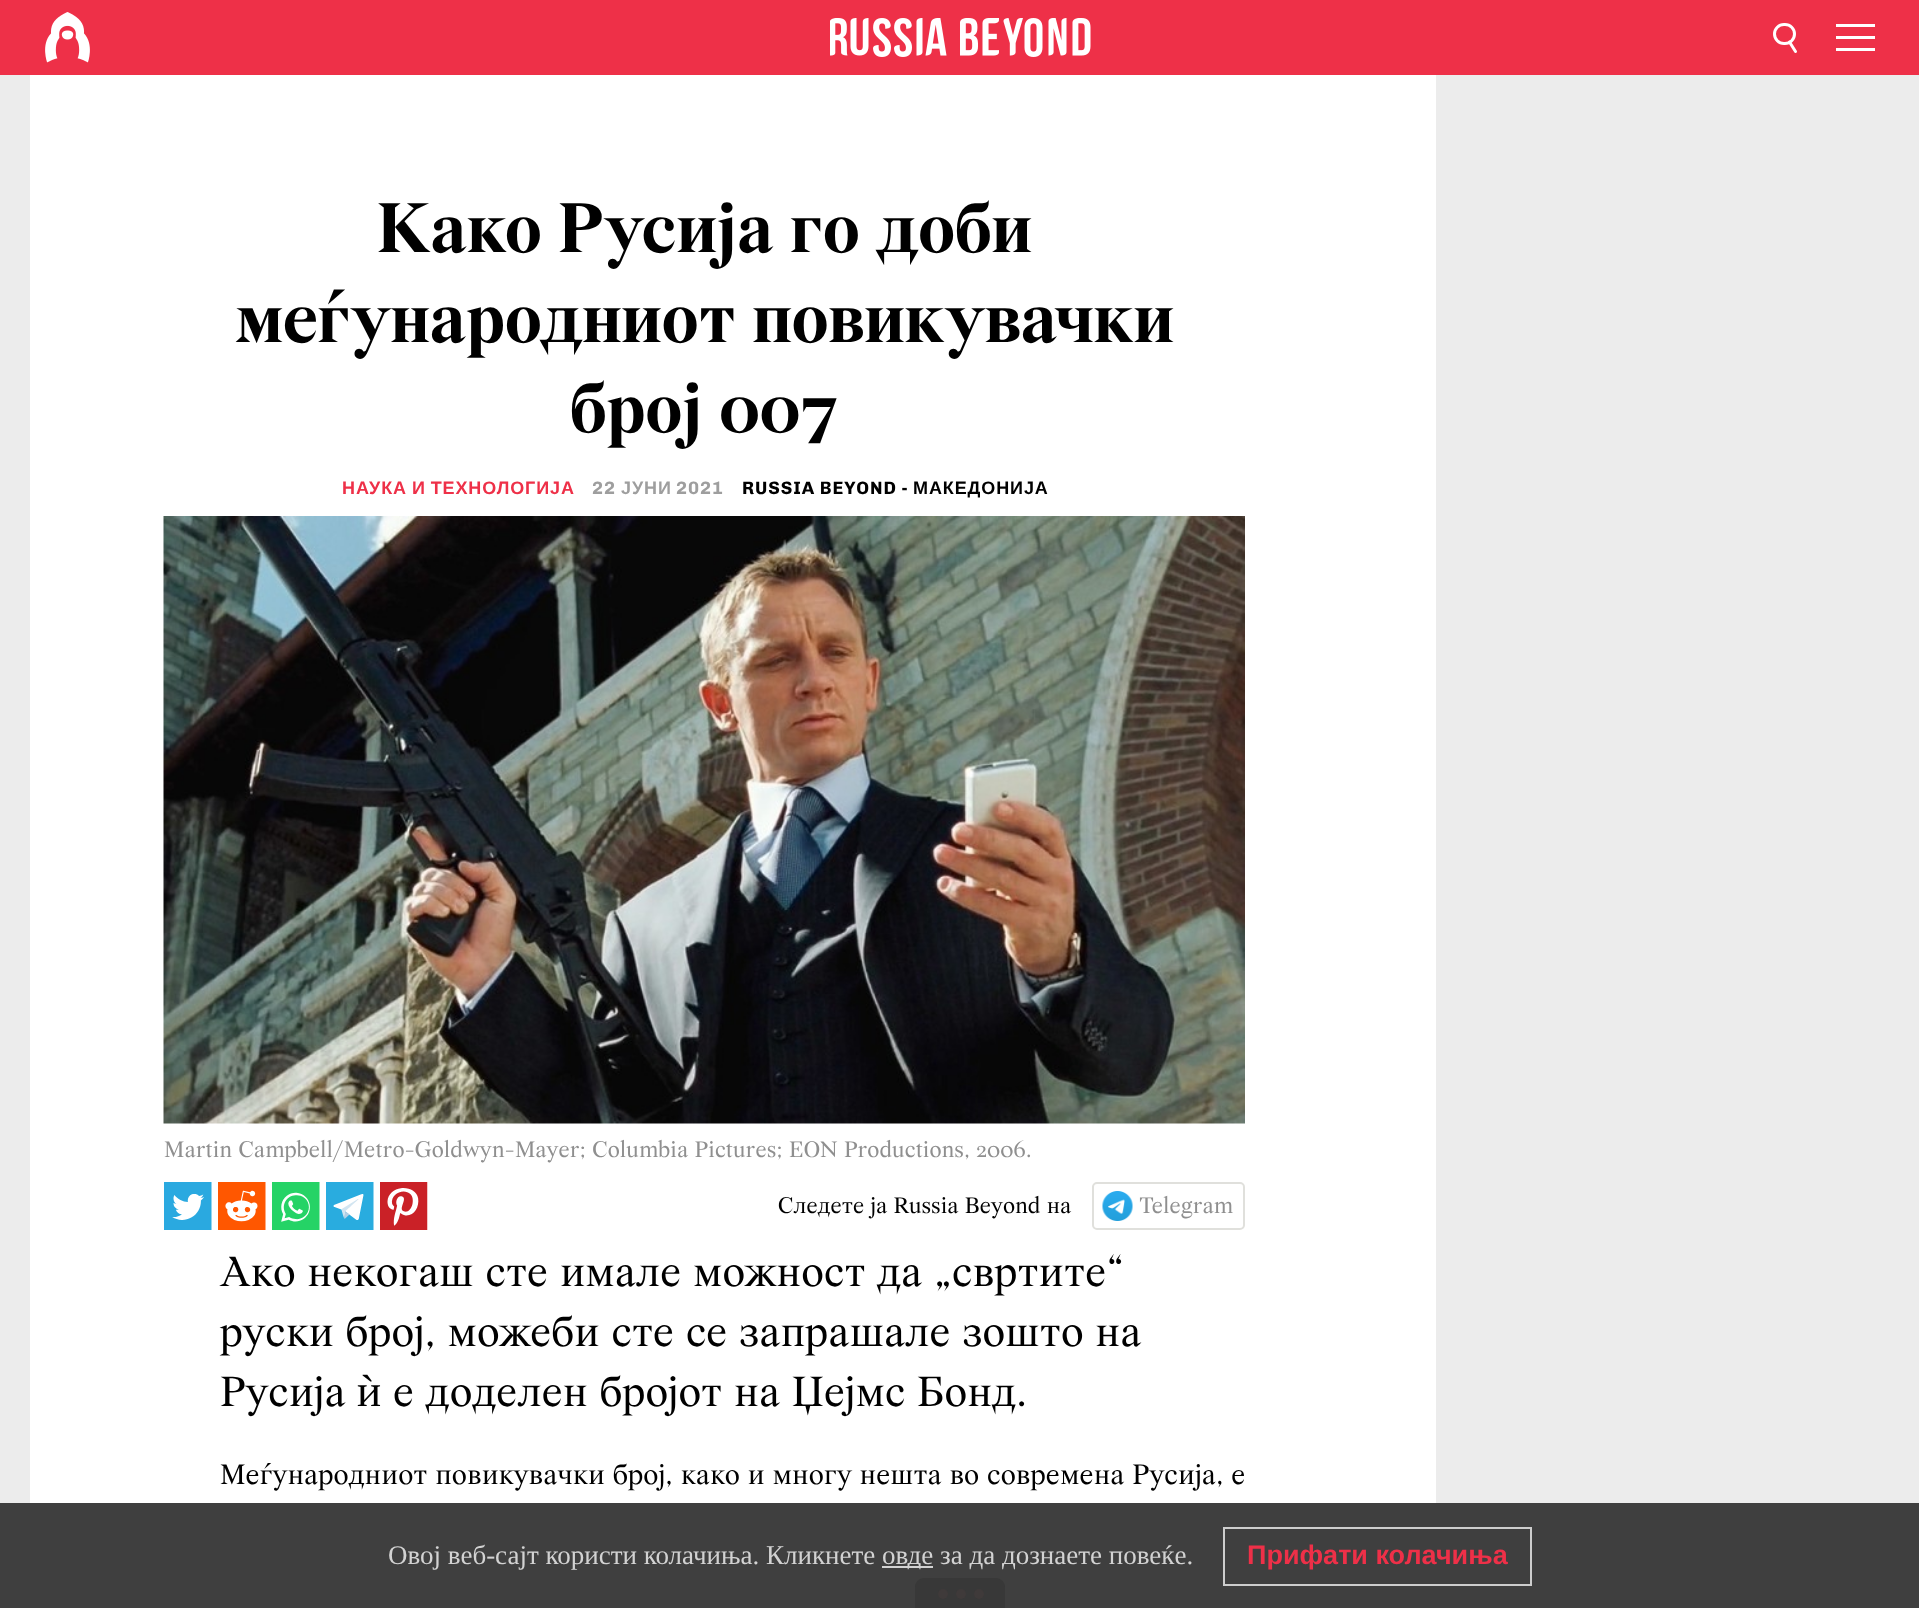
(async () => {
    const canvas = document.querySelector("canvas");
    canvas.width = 1919;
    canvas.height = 1608;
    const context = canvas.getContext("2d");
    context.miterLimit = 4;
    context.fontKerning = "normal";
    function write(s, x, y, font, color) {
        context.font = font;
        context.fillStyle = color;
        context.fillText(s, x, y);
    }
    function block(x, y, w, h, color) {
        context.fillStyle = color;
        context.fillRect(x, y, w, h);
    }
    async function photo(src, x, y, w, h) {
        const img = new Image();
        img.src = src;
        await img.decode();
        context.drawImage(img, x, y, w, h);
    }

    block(0, 0, 1919, 1608, "rgb(236, 236, 236)");
    block(0, 1503, 1919, 105, "rgb(63, 63, 63)");
    block(0, 0, 1919, 75, "rgb(238, 48, 72)");
    await photo("media/1.png", 45, 12, 45, 51);
    await photo("media/2.png", 830, 18, 261, 39);
    context.beginPath();
    context.roundRect(1774.5, 24.5, 20, 19, 9.5);
    context.strokeStyle = "rgb(255, 255, 255)";
    context.lineWidth = 3;
    context.stroke();
    context.beginPath();
    context.moveTo(1789.5, 42);
    context.lineTo(1795.5, 51.5);
    context.lineCap = "round";
    context.stroke();
    context.fillStyle = "rgb(255, 255, 255)";
    context.beginPath();
    context.moveTo(1836, 24);
    context.lineTo(1875, 24);
    context.lineTo(1875, 27);
    context.lineTo(1836, 27);
    context.closePath();
    context.moveTo(1836, 36);
    context.lineTo(1875, 36);
    context.lineTo(1875, 39);
    context.lineTo(1836, 39);
    context.closePath();
    context.moveTo(1836, 48);
    context.lineTo(1875, 48);
    context.lineTo(1875, 51);
    context.lineTo(1836, 51);
    context.closePath();
    context.fill("evenodd");
    block(30, 75, 1406, 1428, "rgb(255, 255, 255)");
    write("Како Русија го доби", 377, 252, "bold 75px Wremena", "rgb(0, 0, 0)");
    write("меѓународниот повикувачки", 236, 342, "bold 75px Wremena", "rgb(0, 0, 0)");
    write("број 007", 570, 432, "bold 75px Wremena", "rgb(0, 0, 0)");
    context.letterSpacing = "0.9px";
    context.wordSpacing = "-1px";
    write("НАУКА И ТЕХНОЛОГИЈА", 342, 494, "bold 18px Liberation Sans", "rgb(238, 48, 72)");
    context.wordSpacing = "0px";
    write("22", 592, 494, "bold 18px Chivo", "rgb(158, 158, 158)");
    write("ЈУНИ", 621, 494, "bold 18px Liberation Sans", "rgb(158, 158, 158)");
    write("2021", 676, 494, "bold 18px Chivo", "rgb(158, 158, 158)");
    write("RUSSIA BEYOND -", 742, 494, "bold 18px Chivo", "rgb(0, 0, 0)");
    write("МАКЕДОНИЈА", 913, 494, "bold 18px Liberation Sans", "rgb(0, 0, 0)");
    await photo("media/3.png", 163, 516, 1082, 608);
    context.letterSpacing = "0px";
    write("Martin Campbell/Metro-Goldwyn-Mayer; Columbia Pictures; EON Productions, 2006.", 164, 1157, "24px Wremena", "rgb(143, 143, 143)");
    await photo("media/4.png", 164, 1182, 48, 48);
    await photo("media/5.png", 218, 1182, 48, 48);
    await photo("media/6.png", 272, 1182, 48, 48);
    await photo("media/7.png", 326, 1182, 48, 48);
    await photo("media/8.png", 380, 1182, 48, 48);
    write("Следете ја Russia Beyond на", 778, 1213, "24px Wremena", "rgb(0, 0, 0)");
    await photo("media/9.png", 1102, 1191, 31, 30);
    context.beginPath();
    context.roundRect(1093, 1183, 151, 46, 4);
    context.strokeStyle = "rgb(224, 224, 220)";
    context.lineWidth = 2;
    context.stroke();
    write("Telegram", 1139, 1213, "24px Wremena", "rgb(143, 143, 143)");
    write("Ако некогаш сте имале можност да „свртите“", 220, 1286, "45px Wremena", "rgb(0, 0, 0)");
    write("руски број, можеби сте се запрашале зошто на", 220, 1346, "45px Wremena", "rgb(0, 0, 0)");
    write("Русија", 220, 1406, "45px Wremena", "rgb(0, 0, 0)");
    write("ѝ", 357, 1406, "45px Liberation Serif", "rgb(0, 0, 0)");
    write("е доделен бројот на Џејмс Бонд.", 393, 1406, "45px Wremena", "rgb(0, 0, 0)");
    write("Меѓународниот повикувачки број, како и многу нешта во современа Русија, е", 220, 1484, "30px Wremena", "rgb(0, 0, 0)");
    context.fillStyle = "rgb(56, 56, 56)";
    context.beginPath();
    context.roundRect(915, 1578, 90, 30, [9, 9, 0, 0]);
    context.fill();
    context.fillStyle = "rgb(63, 58, 58)";
    context.beginPath();
    context.arc(943, 1594, 5, 0, Math.PI * 2);
    context.fill();
    context.beginPath();
    context.arc(961, 1594, 5, 0, Math.PI * 2);
    context.fill();
    context.beginPath();
    context.arc(979, 1594, 5, 0, Math.PI * 2);
    context.fill();
    write("Овој веб-сајт користи колачиња. Кликнете", 388, 1564, "27px Liberation Serif", "rgb(210, 210, 210)");
    block(882, 1566, 51, 2, "rgb(210, 210, 210)");
    write("овде за да дознаете повеќе.", 882, 1564, "27px Liberation Serif", "rgb(210, 210, 210)");
    context.strokeStyle = "rgb(205, 205, 205)";
    context.strokeRect(1224, 1528, 307, 57);
    write("Прифати колачиња", 1247, 1564, "bold 27px Liberation Sans", "rgb(238, 48, 72)");
})();
